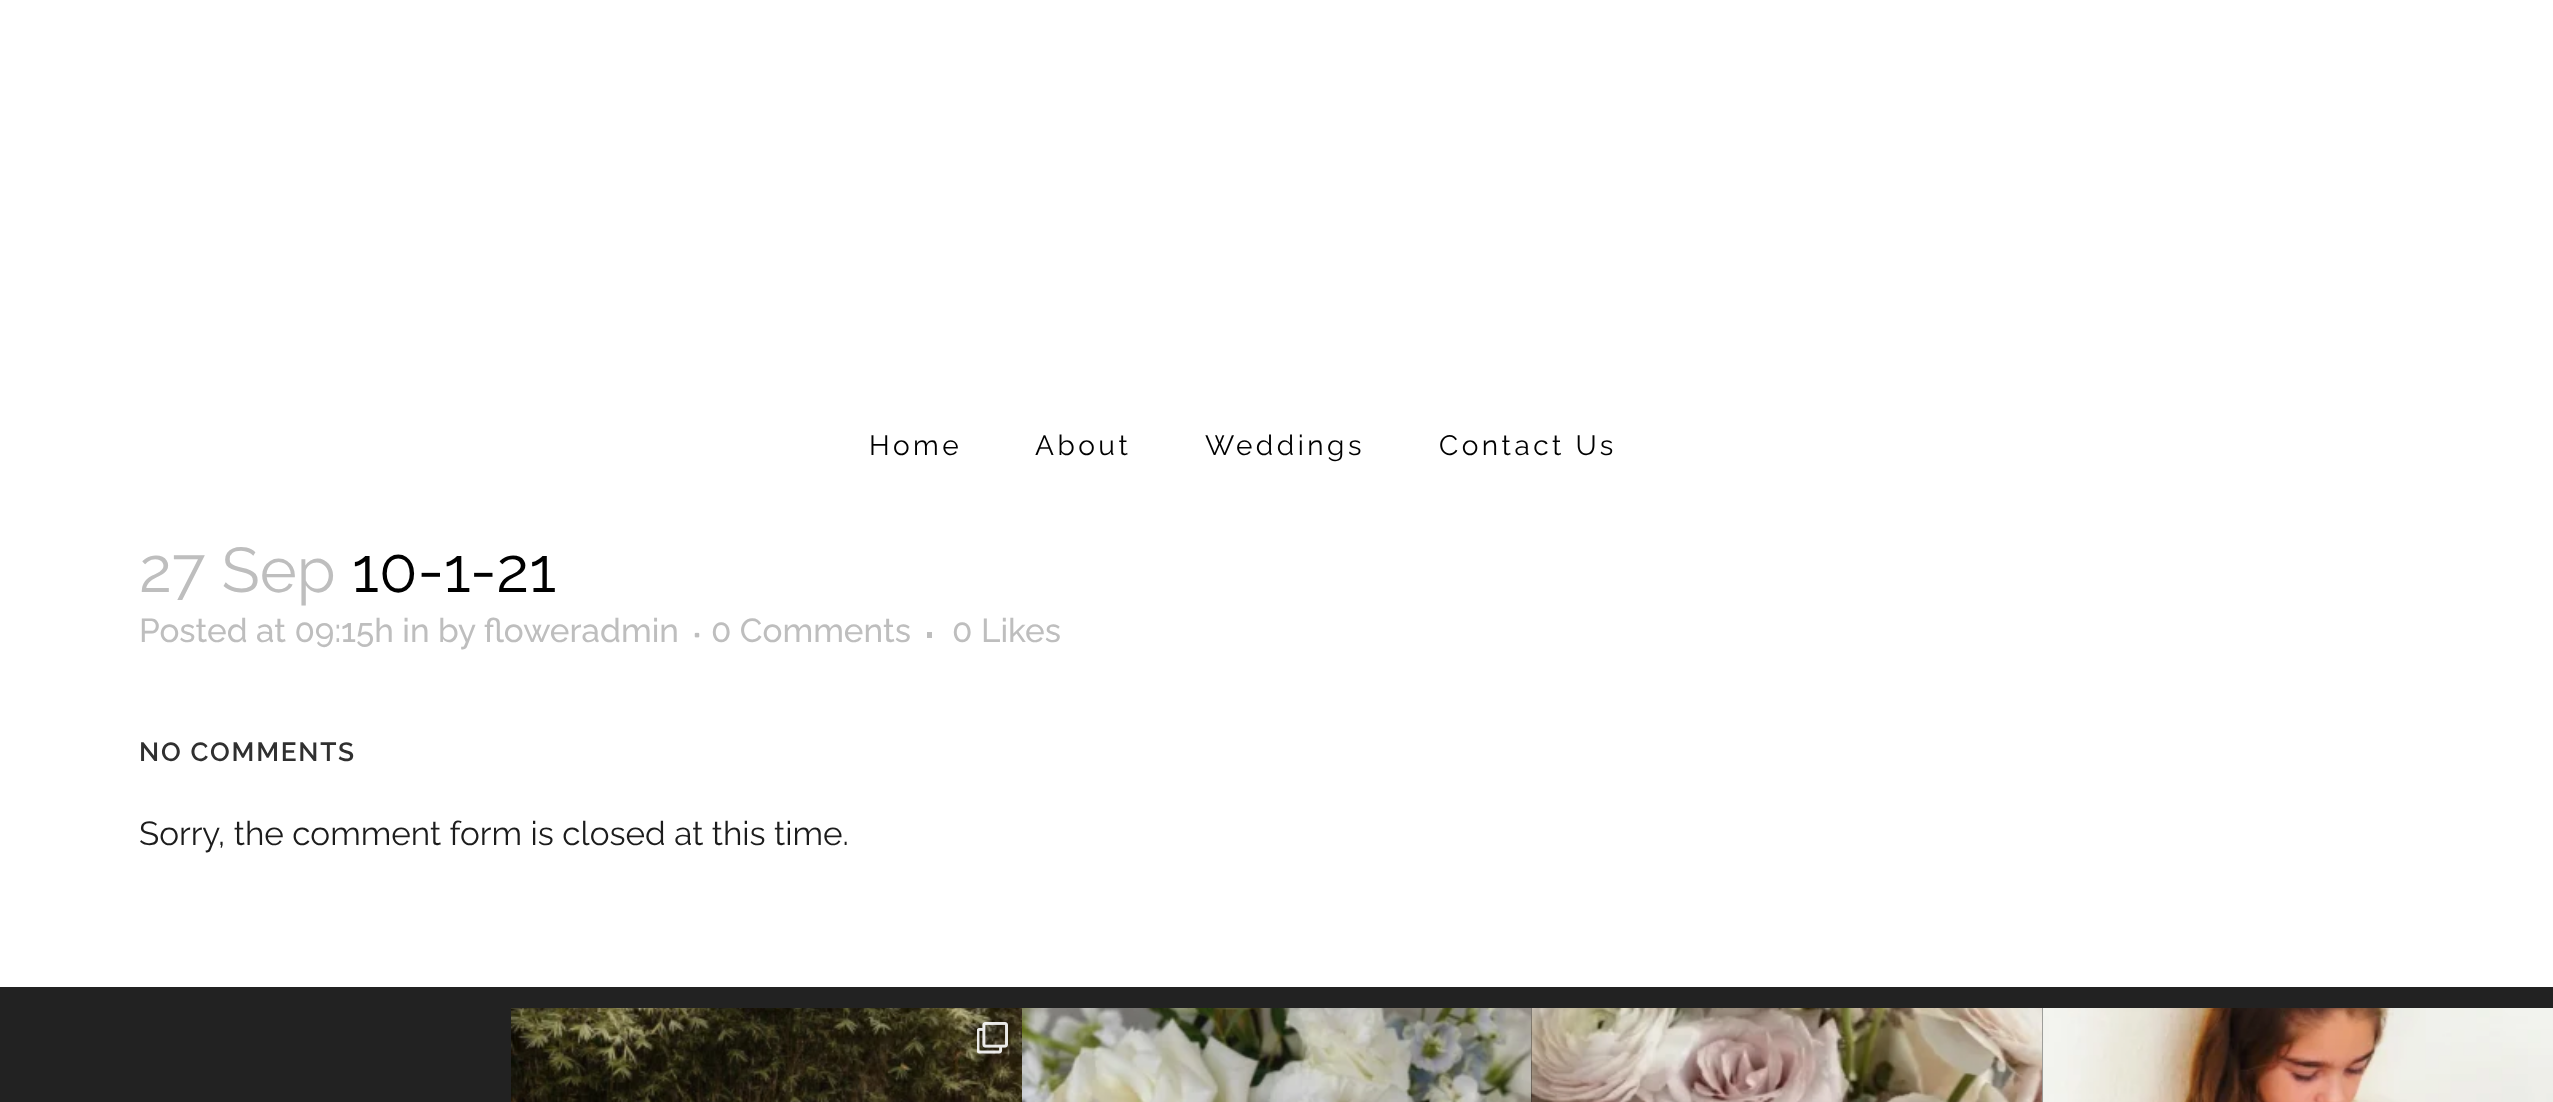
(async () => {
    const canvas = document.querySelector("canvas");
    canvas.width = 2553;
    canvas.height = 1102;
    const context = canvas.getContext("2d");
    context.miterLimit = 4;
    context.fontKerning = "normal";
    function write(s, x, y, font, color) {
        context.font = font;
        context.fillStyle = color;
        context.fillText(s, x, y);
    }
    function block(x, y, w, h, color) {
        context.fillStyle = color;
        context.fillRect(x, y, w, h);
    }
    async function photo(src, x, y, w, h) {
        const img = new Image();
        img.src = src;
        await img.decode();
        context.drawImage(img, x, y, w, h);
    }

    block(0, 0, 2553, 1102, "rgb(255, 255, 255)");
    context.letterSpacing = "3.5px";
    write("Home", 869, 455, "28px Raleway", "rgb(0, 0, 0)");
    write("About", 1035, 455, "28px Raleway", "rgb(0, 0, 0)");
    write("Weddings", 1205, 455, "28px Raleway", "rgb(0, 0, 0)");
    write("Contact Us", 1439, 455, "28px Raleway", "rgb(0, 0, 0)");
    context.letterSpacing = "0px";
    write("27 Sep", 139, 592, "63px Raleway", "rgb(190, 190, 190)");
    write("10-1-21", 352, 592, "63px Raleway", "rgb(0, 0, 0)");
    write("Posted at 09:15h in by floweradmin", 139, 642, "500 33.25px Raleway", "rgb(190, 190, 190)");
    await photo("media/1.png", 694, 632, 6, 6);
    write("0 Comments", 711, 642, "500 33.25px Raleway", "rgb(190, 190, 190)");
    block(927, 632, 5, 6, "rgb(190, 190, 190)");
    write("0", 952, 642, "500 33.25px Raleway", "rgb(190, 190, 190)");
    write("Likes", 981, 642, "500 33.25px Raleway", "rgb(190, 190, 190)");
    context.letterSpacing = "1.75px";
    write("NO COMMENTS", 139, 761, "600 26.25px Raleway", "rgb(48, 48, 48)");
    context.letterSpacing = "0px";
    write("Sorry, the comment form is closed at this time.", 139, 845, "33.25px Raleway", "rgb(28, 28, 28)");
    block(0, 987, 2553, 115, "rgb(34, 34, 34)");
    await photo("media/2.png", 511, 1008, 511, 94);
    await photo("media/3.png", 977, 1022, 31, 32);
    await photo("media/4.png", 1022, 1008, 510, 94);
    await photo("media/5.png", 1531, 1008, 512, 94);
    await photo("media/6.png", 2042, 1008, 511, 94);
})();
